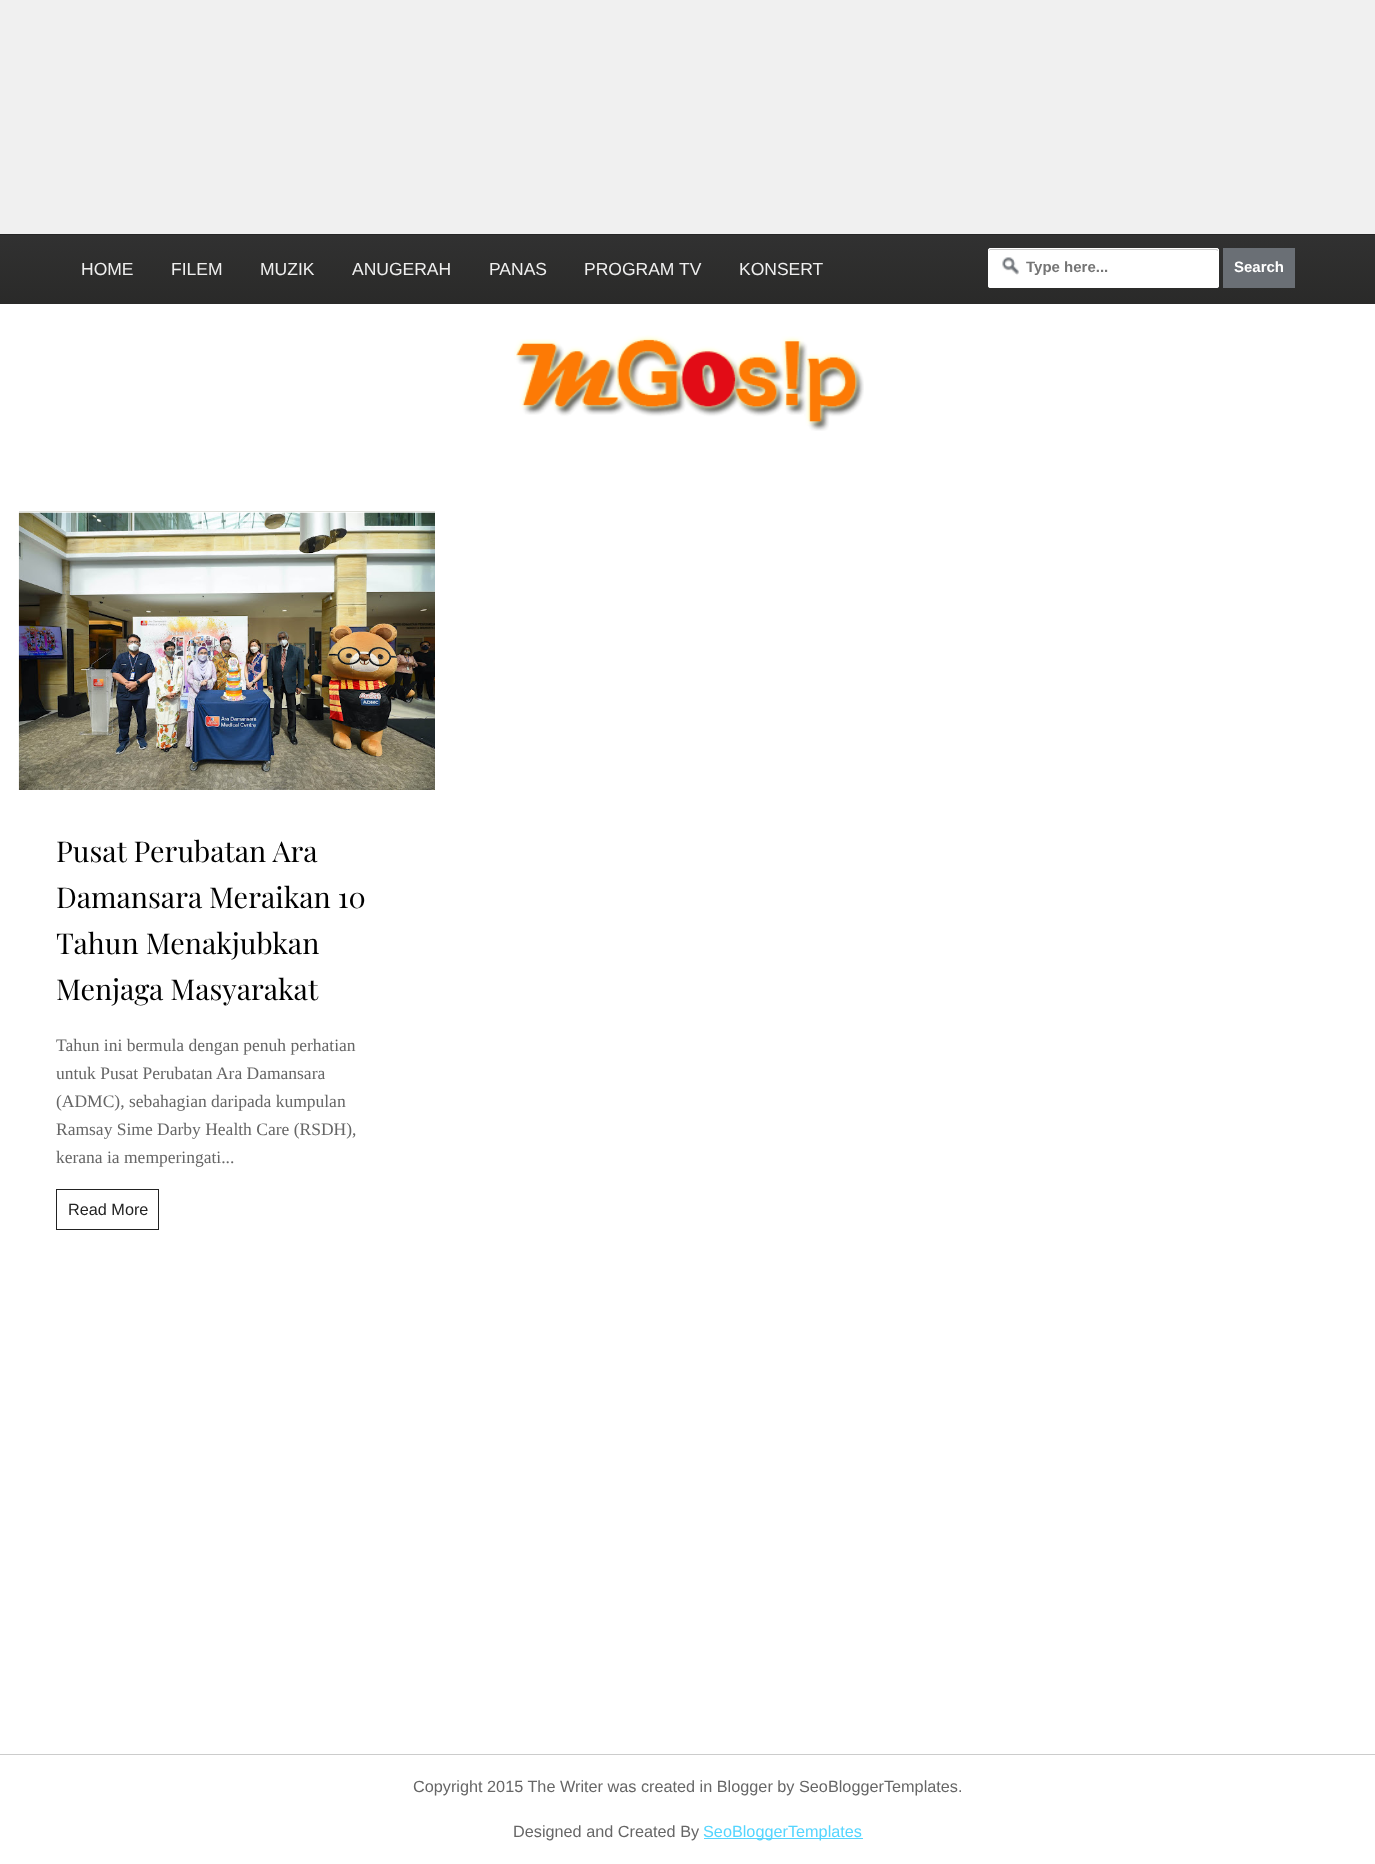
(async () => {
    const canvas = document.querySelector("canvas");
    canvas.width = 1375;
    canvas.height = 1864;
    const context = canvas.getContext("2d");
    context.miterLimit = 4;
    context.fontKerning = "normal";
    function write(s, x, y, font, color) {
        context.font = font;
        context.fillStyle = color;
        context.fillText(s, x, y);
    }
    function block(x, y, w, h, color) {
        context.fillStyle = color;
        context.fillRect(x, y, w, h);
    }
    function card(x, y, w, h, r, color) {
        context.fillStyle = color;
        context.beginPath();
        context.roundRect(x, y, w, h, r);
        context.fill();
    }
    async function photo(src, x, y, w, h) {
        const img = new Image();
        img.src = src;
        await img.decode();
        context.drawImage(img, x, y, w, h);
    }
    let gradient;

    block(0, 0, 1375, 1864, "rgb(240, 240, 240)");
    block(0, 304, 1375, 1560, "rgb(255, 255, 255)");
    gradient = context.createLinearGradient(688, 235, 688, 304);
    gradient.addColorStop(0, "rgb(49, 49, 49)");
    gradient.addColorStop(1, "rgb(42, 42, 41)");
    context.fillStyle = gradient;
    context.fillRect(0, 235, 1375, 69);
    block(0, 234, 1375, 1, "rgb(37, 37, 37)");
    write("HOME", 81, 275, "17.5px Liberation Sans", "rgb(239, 239, 239)");
    write("FILEM", 171, 275, "17.5px Liberation Sans", "rgb(239, 239, 239)");
    write("MUZIK", 260, 275, "17.5px Liberation Sans", "rgb(239, 239, 239)");
    write("ANUGERAH", 352, 275, "17.5px Liberation Sans", "rgb(239, 239, 239)");
    write("PANAS", 489, 275, "17.5px Liberation Sans", "rgb(239, 239, 239)");
    write("PROGRAM TV", 584, 275, "17.5px Liberation Sans", "rgb(239, 239, 239)");
    write("KONSERT", 739, 275, "17.5px Liberation Sans", "rgb(239, 239, 239)");
    card(988, 248, 231, 40, 2.5, "rgb(255, 255, 255)");
    await photo("media/1.png", 1002, 257, 17, 18);
    context.fillStyle = "rgb(204, 204, 204)";
    context.beginPath();
    context.moveTo(990, 250);
    context.lineTo(1216, 250);
    context.lineTo(1218, 251);
    context.lineTo(1218, 249);
    context.lineTo(990, 249);
    context.bezierCurveTo(989, 249, 989, 250, 989, 251);
    context.closePath();
    context.fill();
    context.beginPath();
    context.roundRect(988.5, 248.5, 230, 39, 2);
    context.strokeStyle = "rgb(255, 255, 255)";
    context.stroke();
    write("Type here...", 1026, 272, "bold 15px Liberation Sans", "rgb(117, 117, 117)");
    block(1223, 248, 72, 40, "rgb(106, 111, 117)");
    write("Search", 1234, 272, "bold 15px Liberation Sans", "rgb(255, 255, 255)");
    await photo("media/2.png", 514, 335, 350, 96);
    block(19, 511, 416, 1, "rgb(224, 225, 220)");
    await photo("media/3.png", 18, 512, 417, 278);
    write("Pusat Perubatan Ara", 56, 862, "28.75px Playfair Display", "rgb(0, 0, 0)");
    write("Damansara Meraikan 10", 56, 908, "28.75px Playfair Display", "rgb(0, 0, 0)");
    write("Tahun Menakjubkan", 56, 954, "28.75px Playfair Display", "rgb(0, 0, 0)");
    write("Menjaga Masyarakat", 56, 1000, "28.75px Playfair Display", "rgb(0, 0, 0)");
    write("Tahun ini bermula dengan penuh perhatian", 56, 1051, "17.5px Liberation Serif", "rgb(102, 102, 102)");
    write("untuk Pusat Perubatan Ara Damansara", 56, 1079, "17.5px Liberation Serif", "rgb(102, 102, 102)");
    write("(ADMC), sebahagian daripada kumpulan", 56, 1107, "17.5px Liberation Serif", "rgb(102, 102, 102)");
    write("Ramsay Sime Darby Health Care (RSDH),", 56, 1135, "17.5px Liberation Serif", "rgb(102, 102, 102)");
    write("kerana ia memperingati...", 56, 1163, "17.5px Liberation Serif", "rgb(102, 102, 102)");
    context.strokeStyle = "rgb(34, 34, 34)";
    context.strokeRect(56.5, 1189.5, 102, 40);
    write("Read More", 68, 1215, "16.25px Liberation Sans", "rgb(34, 34, 34)");
    block(0, 1754, 1375, 1, "rgb(204, 204, 204)");
    write("Copyright 2015 The Writer was created in Blogger by SeoBloggerTemplates.", 413, 1792, "16.25px Liberation Sans", "rgb(102, 102, 102)");
    write("Designed and Created By", 513, 1837, "16.25px Liberation Sans", "rgb(102, 102, 102)");
    block(704, 1838, 159, 1, "rgb(85, 213, 255)");
    write("SeoBloggerTemplates", 703, 1837, "16.25px Liberation Sans", "rgb(85, 213, 255)");
})();
